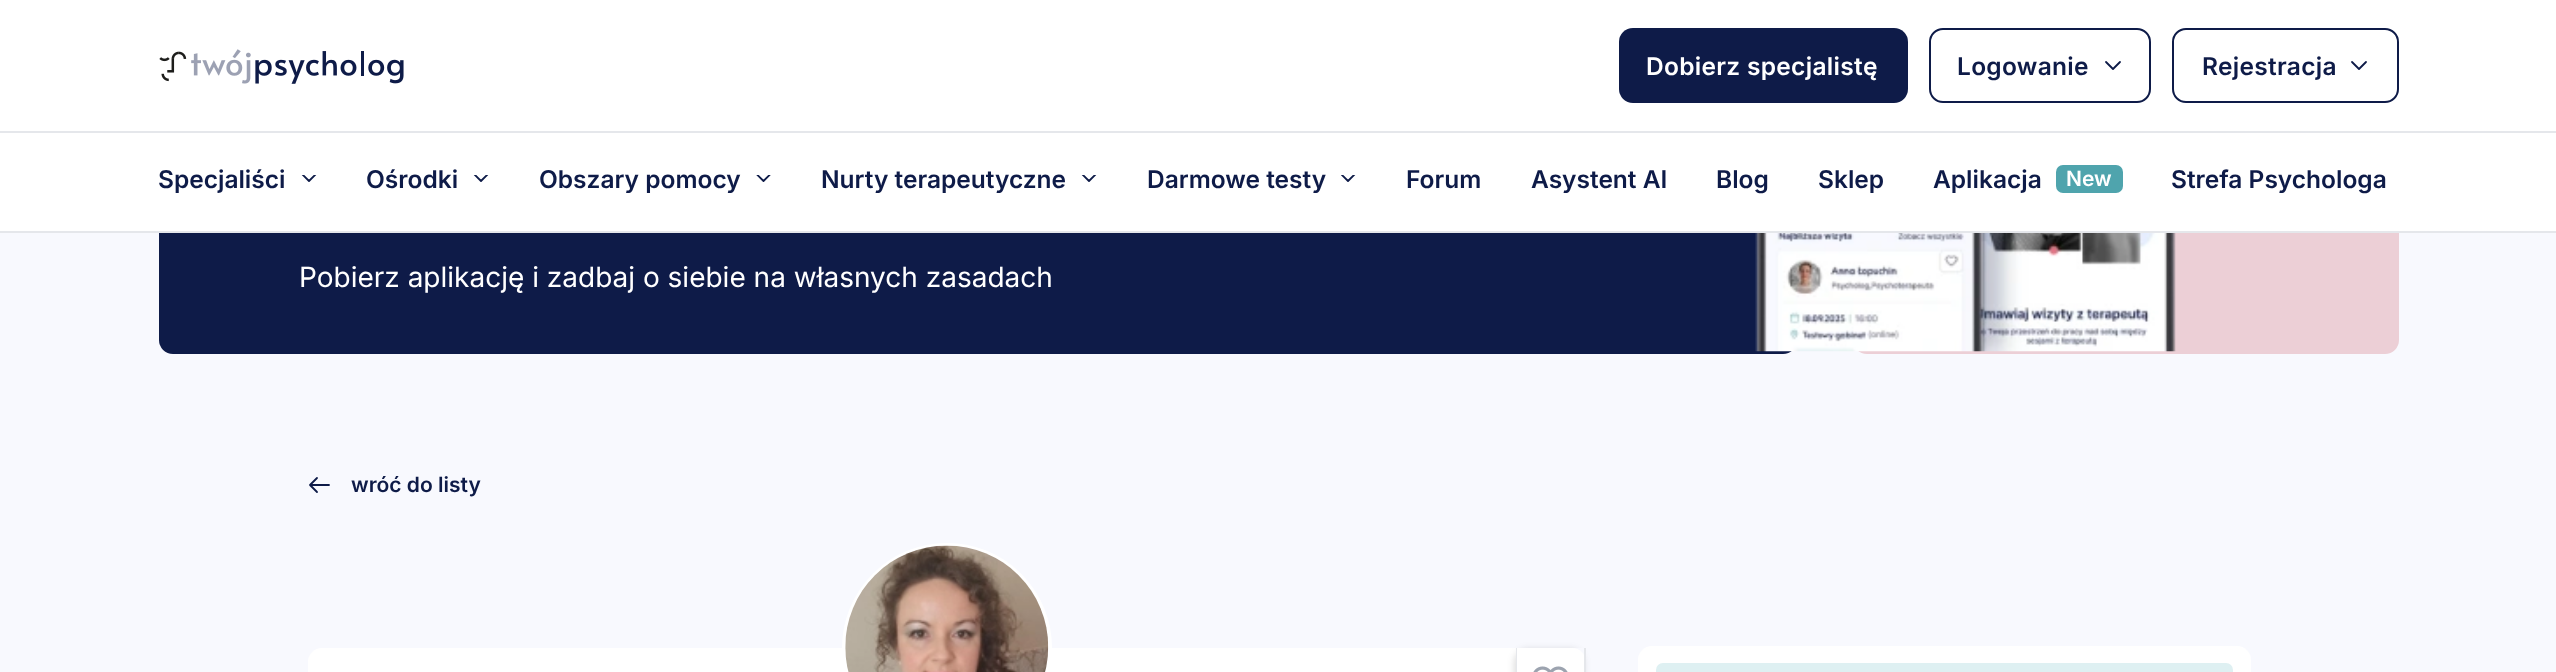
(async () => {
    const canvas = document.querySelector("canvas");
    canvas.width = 2556;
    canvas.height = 672;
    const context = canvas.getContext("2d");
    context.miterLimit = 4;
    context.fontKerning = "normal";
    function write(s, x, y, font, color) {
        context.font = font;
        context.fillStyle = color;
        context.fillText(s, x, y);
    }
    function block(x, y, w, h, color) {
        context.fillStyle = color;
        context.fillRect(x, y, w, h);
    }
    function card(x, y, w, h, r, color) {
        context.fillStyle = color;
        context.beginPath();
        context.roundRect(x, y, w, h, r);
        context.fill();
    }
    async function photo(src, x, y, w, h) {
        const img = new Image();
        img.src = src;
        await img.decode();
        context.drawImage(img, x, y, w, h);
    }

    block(0, 0, 2556, 672, "rgb(248, 249, 254)");
    card(159, -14, 1638, 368, 14, "rgb(14, 27, 72)");
    card(1853, -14, 546, 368, 14, "rgb(236, 207, 214)");
    block(0, 0, 2556, 131, "rgb(255, 255, 255)");
    block(0, 131, 2556, 2, "rgb(229, 231, 235)");
    await photo("media/1.png", 159, 49, 245, 35);
    card(1619, 28, 289, 75, 14, "rgb(14, 27, 72)");
    context.letterSpacing = "0.3px";
    write("Dobierz specjalistę", 1646, 75, "600 24.5px Inter", "rgb(255, 255, 255)");
    context.beginPath();
    context.roundRect(1930, 29, 220, 73, 13);
    context.strokeStyle = "rgb(14, 27, 72)";
    context.lineWidth = 2;
    context.stroke();
    write("Logowanie", 1957, 75, "600 24.5px Inter", "rgb(14, 27, 72)");
    context.beginPath();
    context.moveTo(2120, 62);
    context.lineTo(2113, 69);
    context.lineTo(2106, 62);
    context.lineWidth = 1.8;
    context.lineCap = "round";
    context.lineJoin = "round";
    context.stroke();
    context.beginPath();
    context.roundRect(2173, 29, 225, 73, 13);
    context.lineWidth = 2;
    context.lineJoin = "miter";
    context.stroke();
    write("Rejestracja", 2202, 75, "600 24.5px Inter", "rgb(14, 27, 72)");
    context.beginPath();
    context.moveTo(2366, 62);
    context.lineTo(2359, 69);
    context.lineTo(2352, 62);
    context.lineWidth = 1.8;
    context.lineJoin = "round";
    context.stroke();
    block(0, 133, 2556, 98, "rgb(255, 255, 255)");
    block(0, 231, 2556, 2, "rgb(229, 231, 235)");
    context.letterSpacing = "0px";
    write("Specjaliści", 158, 188, "600 24.5px Inter", "rgb(14, 27, 72)");
    context.save();
    context.beginPath();
    context.rect(299, 175, 18, 9);
    context.clip();
    context.beginPath();
    context.moveTo(316, 174);
    context.lineTo(309, 181);
    context.lineTo(302, 174);
    context.stroke();
    context.restore();
    write("Ośrodki", 366, 188, "600 24.5px Inter", "rgb(14, 27, 72)");
    context.save();
    context.beginPath();
    context.rect(473, 175, 17, 9);
    context.clip();
    context.beginPath();
    context.moveTo(488, 174);
    context.lineTo(481, 181);
    context.lineTo(474, 174);
    context.stroke();
    context.restore();
    write("Obszary pomocy", 539, 188, "600 24.5px Inter", "rgb(14, 27, 72)");
    context.save();
    context.beginPath();
    context.rect(754, 175, 18, 9);
    context.clip();
    context.beginPath();
    context.moveTo(770.5, 174);
    context.lineTo(763.5, 181);
    context.lineTo(756.5, 174);
    context.stroke();
    context.restore();
    write("Nurty terapeutyczne", 821, 188, "600 24.5px Inter", "rgb(14, 27, 72)");
    context.save();
    context.beginPath();
    context.rect(1080, 175, 17, 9);
    context.clip();
    context.beginPath();
    context.moveTo(1096, 174);
    context.lineTo(1089, 181);
    context.lineTo(1082, 174);
    context.stroke();
    context.restore();
    write("Darmowe testy", 1147, 188, "600 24.5px Inter", "rgb(14, 27, 72)");
    context.save();
    context.beginPath();
    context.rect(1341, 175, 17, 9);
    context.clip();
    context.beginPath();
    context.moveTo(1355, 174);
    context.lineTo(1348, 181);
    context.lineTo(1341, 174);
    context.stroke();
    context.restore();
    write("Forum", 1406, 188, "600 24.5px Inter", "rgb(14, 27, 72)");
    write("Asystent AI", 1531, 188, "600 24.5px Inter", "rgb(14, 27, 72)");
    write("Blog", 1716, 188, "600 24.5px Inter", "rgb(14, 27, 72)");
    write("Sklep", 1818, 188, "600 24.5px Inter", "rgb(14, 27, 72)");
    write("Aplikacja", 1933, 188, "600 24.5px Inter", "rgb(14, 27, 72)");
    card(2056, 165, 67, 28, 7, "rgb(79, 164, 173)");
    write("New", 2066, 186, "600 21px Inter", "rgb(255, 255, 255)");
    write("Strefa Psychologa", 2171, 188, "600 24.5px Inter", "rgb(14, 27, 72)");
    write("Pobierz aplikację i zadbaj o siebie na własnych zasadach", 299, 287, "28px Inter", "rgb(255, 255, 255)");
    await photo("media/2.png", 1755, 233, 421, 119);
    context.beginPath();
    context.moveTo(310, 485);
    context.lineTo(329, 485);
    context.moveTo(317, 492);
    context.lineTo(310, 485);
    context.lineTo(317, 478);
    context.stroke();
    write("wróć do listy", 351, 492, "600 21px Inter", "rgb(14, 27, 72)");
    card(308, 648, 1278, 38, 14, "rgb(255, 255, 255)");
    context.beginPath();
    context.arc(947, 648, 103, 0, Math.PI * 2);
    context.strokeStyle = "rgb(255, 255, 255)";
    context.lineWidth = 4;
    context.stroke();
    await photo("media/3.png", 845, 545, 204, 127);
    context.save();
    context.beginPath();
    context.moveTo(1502, 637);
    context.lineTo(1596, 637);
    context.lineTo(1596, 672);
    context.lineTo(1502, 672);
    context.closePath();
    context.moveTo(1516, 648);
    context.lineTo(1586, 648);
    context.lineTo(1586, 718);
    context.lineTo(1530, 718);
    context.bezierCurveTo(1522.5, 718, 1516, 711.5, 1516, 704);
    context.closePath();
    context.clip("evenodd");
    context.fillStyle = "rgba(0, 0, 0, 0.13)";
    context.filter = "blur(3.5px)";
    context.beginPath();
    context.roundRect(1514, 649, 70, 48, 14);
    context.fill();
    context.filter = "none";
    context.restore();
    context.fillStyle = "rgb(229, 231, 235)";
    context.beginPath();
    context.moveTo(1516, 648);
    context.lineTo(1586, 648);
    context.lineTo(1586, 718);
    context.lineTo(1530, 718);
    context.bezierCurveTo(1522, 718, 1516, 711, 1516, 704);
    context.closePath();
    context.moveTo(1517, 648);
    context.lineTo(1584, 648);
    context.lineTo(1584, 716);
    context.lineTo(1530, 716);
    context.bezierCurveTo(1523, 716, 1517, 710, 1517, 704);
    context.closePath();
    context.fill("evenodd");
    await photo("media/4.png", 1533, 666, 35, 6);
    card(1638, 646, 613, 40, 14, "rgb(255, 255, 255)");
    card(1656, 663, 577, 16, 7, "rgb(222, 240, 242)");
})();
